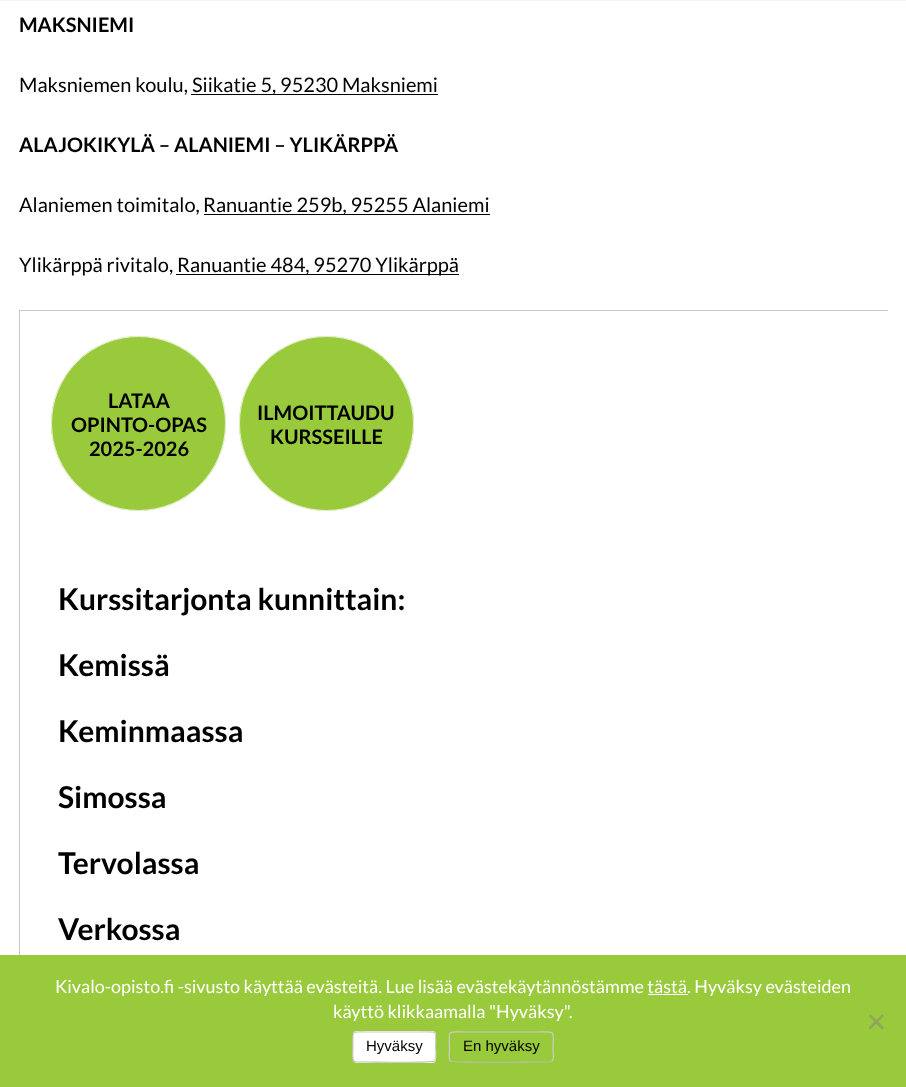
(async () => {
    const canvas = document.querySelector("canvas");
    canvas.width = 906;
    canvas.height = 1087;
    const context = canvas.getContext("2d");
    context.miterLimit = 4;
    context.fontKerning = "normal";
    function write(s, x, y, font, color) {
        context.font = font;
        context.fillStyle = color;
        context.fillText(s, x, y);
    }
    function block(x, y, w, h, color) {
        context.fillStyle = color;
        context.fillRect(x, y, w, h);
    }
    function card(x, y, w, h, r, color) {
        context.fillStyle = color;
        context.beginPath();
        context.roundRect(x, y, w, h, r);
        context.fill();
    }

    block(0, 0, 906, 1087, "rgb(255, 255, 255)");
    block(0, 0, 906, 1, "rgb(243, 243, 243)");
    write("MAKSNIEMI", 19, 32, "bold 20px Lato", "rgb(0, 0, 0)");
    write("Maksniemen koulu,", 19, 92, "20px Lato", "rgb(0, 0, 0)");
    block(191, 94, 247, 1, "rgb(0, 0, 0)");
    write("Siikatie 5, 95230 Maksniemi", 192, 92, "20px Lato", "rgb(0, 0, 0)");
    write("ALAJOKIKYLÄ – ALANIEMI – YLIKÄRPPÄ", 19, 152, "bold 20px Lato", "rgb(0, 0, 0)");
    write("Alaniemen toimitalo,", 19, 212, "20px Lato", "rgb(0, 0, 0)");
    block(204, 214, 286, 1, "rgb(0, 0, 0)");
    write("Ranuantie 259b, 95255 Alaniemi", 203, 212, "20px Lato", "rgb(0, 0, 0)");
    write("Ylikärppä rivitalo,", 19, 272, "20px Lato", "rgb(0, 0, 0)");
    block(176, 274, 283, 1, "rgb(0, 0, 0)");
    write("Ranuantie 484, 95270 Ylikärppä", 177, 272, "20px Lato", "rgb(0, 0, 0)");
    block(19, 310, 869, 1, "rgb(201, 201, 204)");
    block(19, 310, 1, 645, "rgb(201, 201, 204)");
    context.fillStyle = "rgb(153, 202, 59)";
    context.beginPath();
    context.arc(138.5, 423.5, 87.5, 0, Math.PI * 2);
    context.fill();
    context.beginPath();
    context.arc(138.5, 423.5, 87, 0, Math.PI * 2);
    context.strokeStyle = "rgba(255, 255, 255, 0.75)";
    context.stroke();
    write("LATAA", 108, 408, "bold 20px Lato", "rgb(0, 0, 0)");
    write("OPINTO-OPAS", 71, 432, "bold 20px Lato", "rgb(0, 0, 0)");
    write("2025-2026", 89, 456, "bold 20px Lato", "rgb(0, 0, 0)");
    context.fillStyle = "rgb(153, 202, 59)";
    context.beginPath();
    context.arc(326.5, 423.5, 87.5, 0, Math.PI * 2);
    context.fill();
    context.beginPath();
    context.arc(326.5, 423.5, 87, 0, Math.PI * 2);
    context.stroke();
    write("ILMOITTAUDU", 257, 420, "bold 20px Lato", "rgb(0, 0, 0)");
    write("KURSSEILLE", 270, 444, "bold 20px Lato", "rgb(0, 0, 0)");
    write("Kurssitarjonta kunnittain:", 58, 610, "bold 30px Lato", "rgb(0, 0, 0)");
    write("Kemissä", 58, 676, "bold 30px Lato", "rgb(0, 0, 0)");
    write("Keminmaassa", 58, 742, "bold 30px Lato", "rgb(0, 0, 0)");
    write("Simossa", 58, 808, "bold 30px Lato", "rgb(0, 0, 0)");
    write("Tervolassa", 58, 874, "bold 30px Lato", "rgb(0, 0, 0)");
    write("Verkossa", 58, 940, "bold 30px Lato", "rgb(0, 0, 0)");
    block(0, 955, 906, 132, "rgb(153, 202, 59)");
    write("Kivalo-opisto.fi -sivusto käyttää evästeitä. Lue lisää evästekäytännöstämme tästä", 55, 993, "18px Lato", "rgb(255, 255, 255)");
    block(648, 994, 40, 1, "rgb(255, 255, 255)");
    write(". Hyväksy evästeiden", 687, 993, "18px Lato", "rgb(255, 255, 255)");
    write("käyttö klikkaamalla \"Hyväksy\".", 333, 1018, "18px Lato", "rgb(255, 255, 255)");
    context.fillStyle = "rgb(141, 165, 94)";
    context.beginPath();
    context.moveTo(882, 1014.5);
    context.lineTo(884, 1016);
    context.lineTo(870.5, 1029.5);
    context.lineTo(868.5, 1027.5);
    context.closePath();
    context.fill();
    context.beginPath();
    context.moveTo(868.5, 1016);
    context.lineTo(870.5, 1014.5);
    context.lineTo(884, 1027.5);
    context.lineTo(882, 1029.5);
    context.closePath();
    context.fill();
    card(353, 1031, 83, 32, 4, "rgb(255, 255, 255)");
    context.beginPath();
    context.moveTo(434.5, 1061);
    context.bezierCurveTo(432.5, 1063, 376.5, 1062, 369, 1062);
    context.lineTo(356, 1062);
    context.lineTo(354, 1061);
    context.strokeStyle = "rgb(187, 187, 187)";
    context.lineWidth = 1.2;
    context.stroke();
    context.beginPath();
    context.moveTo(354, 1061);
    context.bezierCurveTo(352, 1059, 353, 1049.5, 353, 1047);
    context.bezierCurveTo(353, 1029, 350.5, 1032, 369, 1032);
    context.lineTo(420, 1032);
    context.bezierCurveTo(438.5, 1032, 435.5, 1029, 435.5, 1047);
    context.bezierCurveTo(435.5, 1049.5, 437, 1059, 434.5, 1061);
    context.strokeStyle = "rgb(204, 204, 204)";
    context.stroke();
    write("Hyväksy", 366, 1051, "15px Liberation Sans", "rgb(0, 0, 0)");
    context.beginPath();
    context.moveTo(552, 1061);
    context.lineTo(550, 1062);
    context.lineTo(534, 1062);
    context.bezierCurveTo(525, 1062, 452.5, 1063, 450.5, 1061);
    context.strokeStyle = "rgb(187, 187, 187)";
    context.stroke();
    context.beginPath();
    context.moveTo(450.5, 1061);
    context.bezierCurveTo(448, 1059, 449.5, 1053, 449.5, 1051);
    context.bezierCurveTo(449.5, 1028, 445, 1032, 469, 1032);
    context.lineTo(534, 1032);
    context.bezierCurveTo(557.5, 1032, 553, 1028, 553, 1051);
    context.bezierCurveTo(553, 1053, 554.5, 1059, 552, 1061);
    context.strokeStyle = "rgb(204, 204, 204)";
    context.stroke();
    write("En hyväksy", 463, 1051, "15px Liberation Sans", "rgb(0, 0, 0)");
})();
